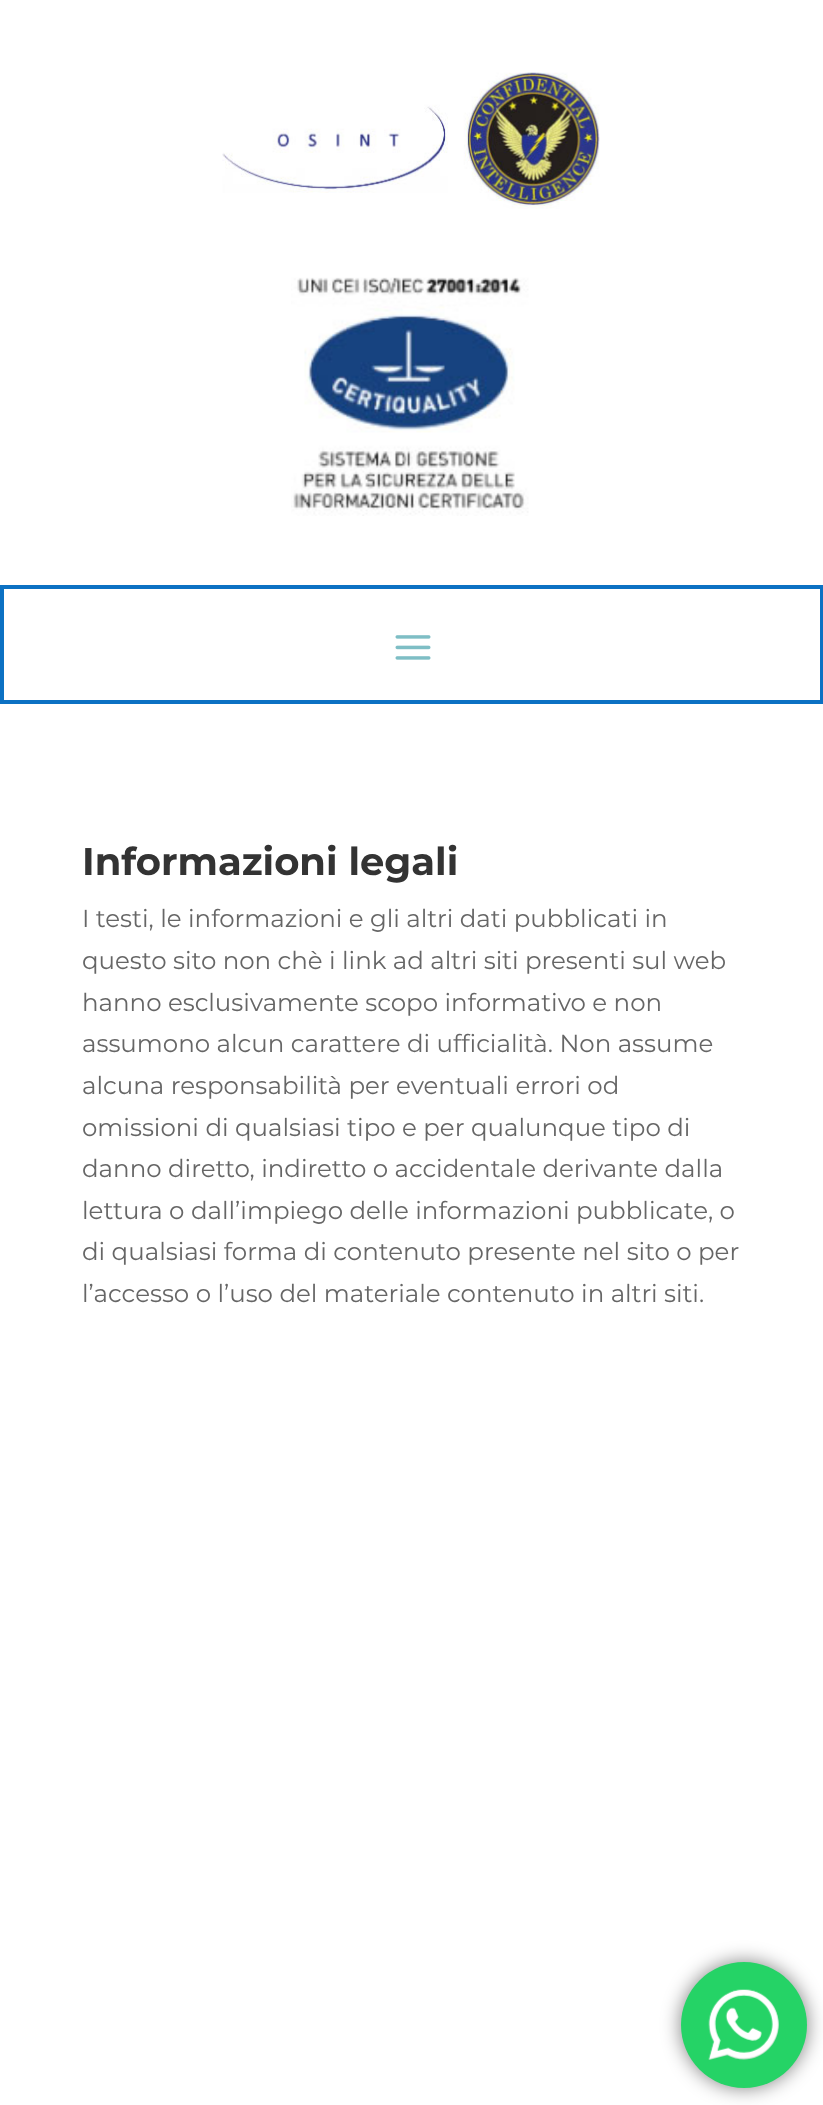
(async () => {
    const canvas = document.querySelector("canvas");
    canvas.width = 823;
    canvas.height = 2105;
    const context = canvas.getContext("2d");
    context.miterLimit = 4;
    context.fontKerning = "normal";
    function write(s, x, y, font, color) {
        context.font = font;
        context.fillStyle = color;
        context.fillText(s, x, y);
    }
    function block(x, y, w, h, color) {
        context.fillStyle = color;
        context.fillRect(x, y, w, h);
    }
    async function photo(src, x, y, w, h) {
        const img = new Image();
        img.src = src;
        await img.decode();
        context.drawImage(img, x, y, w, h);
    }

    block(0, 0, 823, 2105, "rgb(255, 255, 255)");
    await photo("media/1.png", 222, 72, 378, 137);
    await photo("media/2.png", 291, 277, 238, 239);
    context.strokeStyle = "rgb(12, 113, 195)";
    context.lineWidth = 4;
    context.strokeRect(2, 587, 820, 115);
    await photo("media/3.png", 395, 635, 36, 25);
    write("Informazioni legali", 82, 875, "bold 38.5px Montserrat", "rgb(51, 51, 51)");
    write("I testi, le informazioni e gli altri dati pubblicati in", 82, 927, "24.5px Montserrat", "rgb(102, 102, 102)");
    write("questo sito non chè i link ad altri siti presenti sul web", 82, 969, "24.5px Montserrat", "rgb(102, 102, 102)");
    write("hanno esclusivamente scopo informativo e non", 82, 1011, "24.5px Montserrat", "rgb(102, 102, 102)");
    write("assumono alcun carattere di ufficialità. Non assume", 82, 1052, "24.5px Montserrat", "rgb(102, 102, 102)");
    write("alcuna responsabilità per eventuali errori od", 82, 1094, "24.5px Montserrat", "rgb(102, 102, 102)");
    write("omissioni di qualsiasi tipo e per qualunque tipo di", 82, 1136, "24.5px Montserrat", "rgb(102, 102, 102)");
    write("danno diretto, indiretto o accidentale derivante dalla", 82, 1177, "24.5px Montserrat", "rgb(102, 102, 102)");
    write("lettura o dall’impiego delle informazioni pubblicate, o", 82, 1219, "24.5px Montserrat", "rgb(102, 102, 102)");
    write("di qualsiasi forma di contenuto presente nel sito o per", 82, 1260, "24.5px Montserrat", "rgb(102, 102, 102)");
    write("l’accesso o l’uso del materiale contenuto in altri siti.", 82, 1302, "24.5px Montserrat", "rgb(102, 102, 102)");
    context.fillStyle = "rgba(0, 0, 0, 0.5)";
    context.filter = "blur(9.5px)";
    context.beginPath();
    context.roundRect(681, 1962, 126, 126, 63);
    context.fill();
    context.filter = "none";
    context.fillStyle = "rgb(37, 211, 102)";
    context.beginPath();
    context.arc(744, 2025, 63, 0, Math.PI * 2);
    context.fill();
    await photo("media/4.png", 708, 1989, 71, 71);
})();
